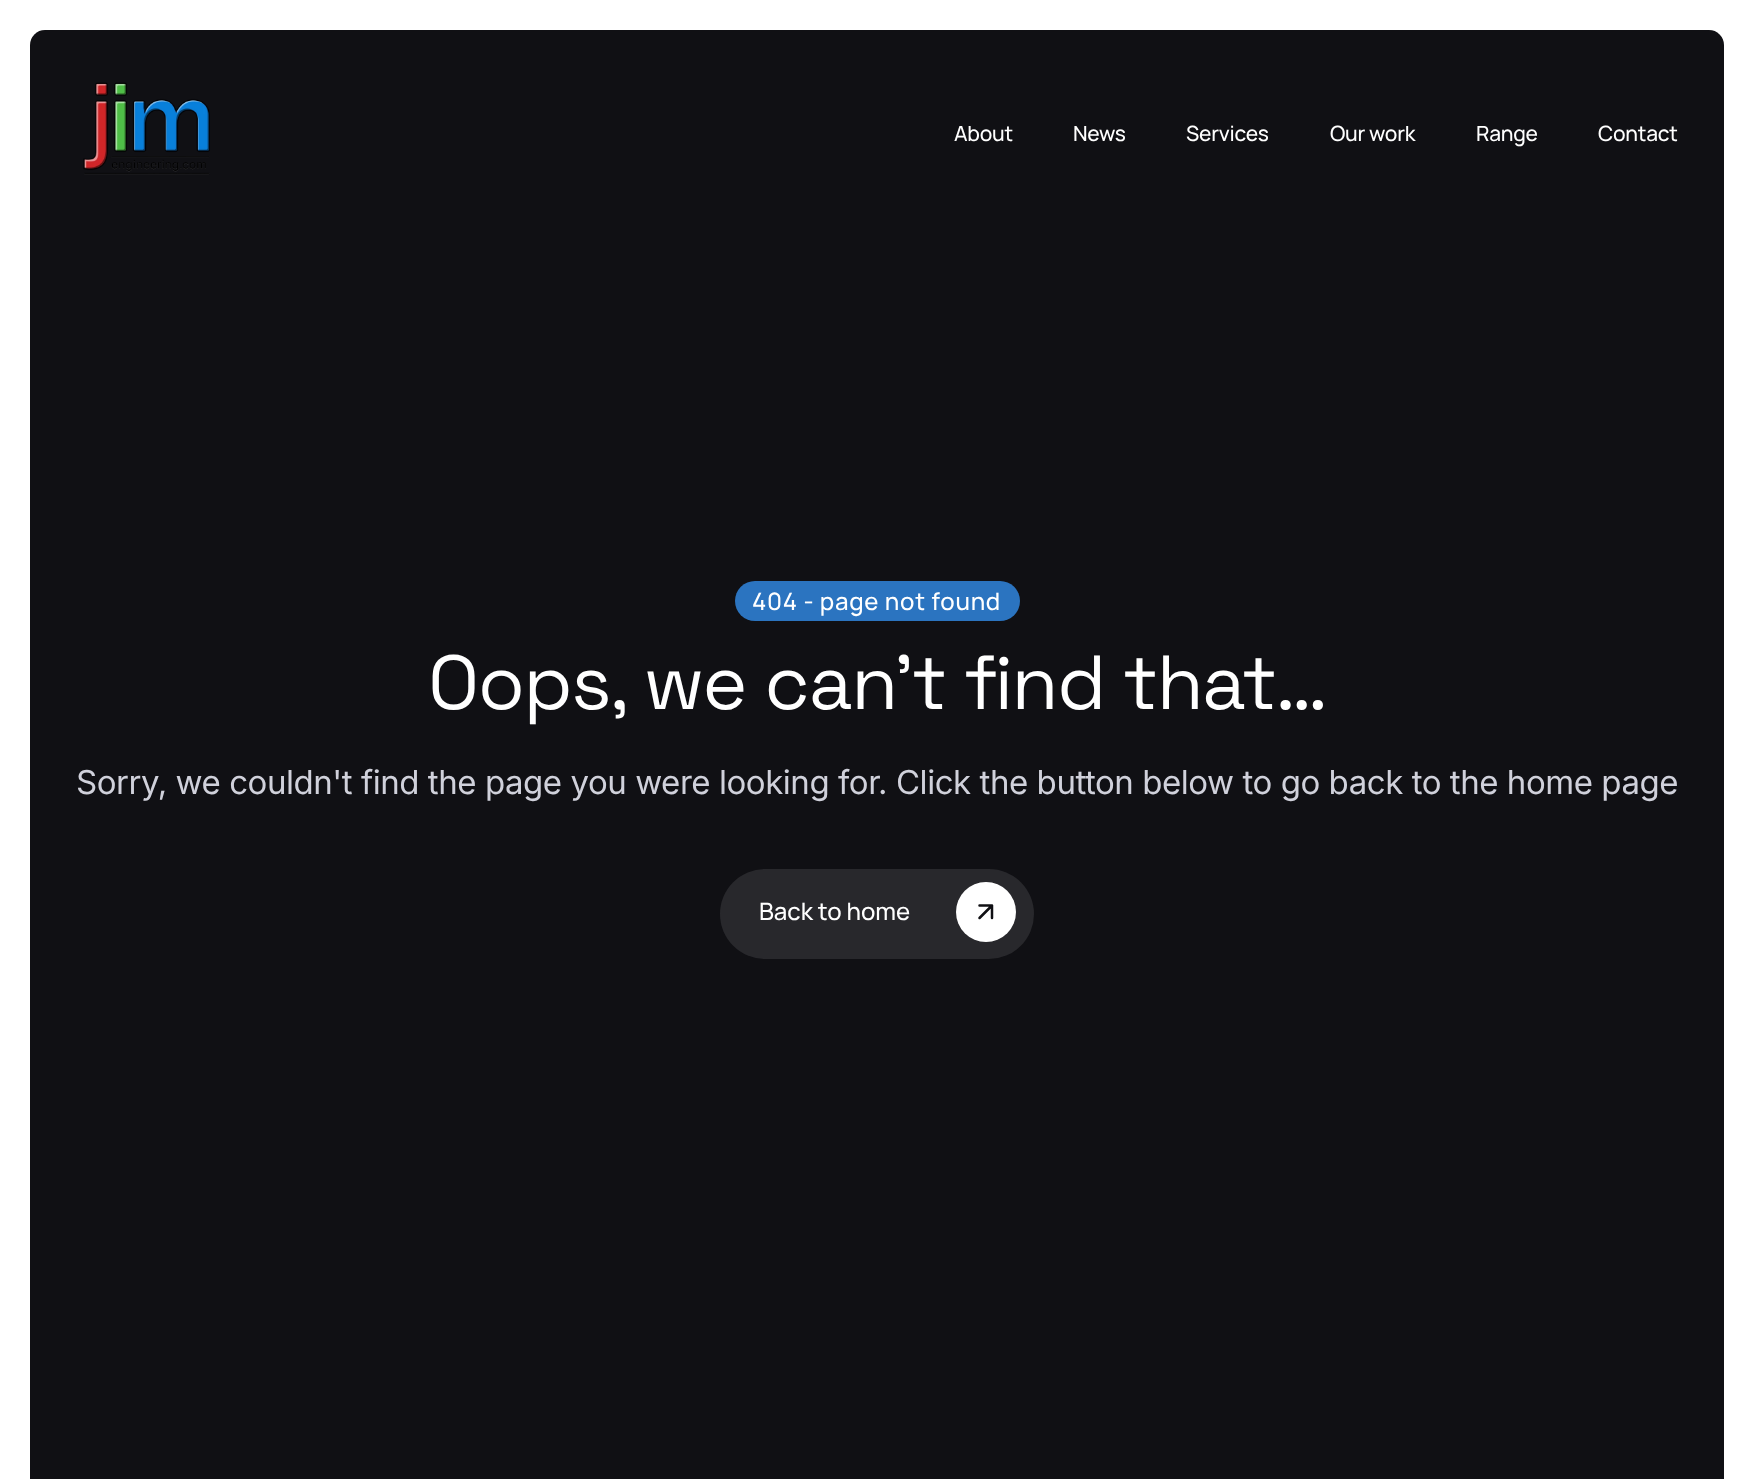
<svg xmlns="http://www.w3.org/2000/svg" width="1753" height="1479">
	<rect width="100%" height="100%" fill="#FFFFFF" />
	<rect x="30" y="30" width="1694" height="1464" rx="15" fill="#101014" />
	<image x="83" y="82" width="127" height="93" href="assets/img1.png" />
	<g font-family="Manrope" font-size="21" font-weight="500" letter-spacing="-0.25" fill="#FFFFFF">
		<text x="954" y="141">About</text>
		<text x="1073" y="141">News</text>
		<text x="1186" y="141">Services</text>
		<text x="1330" y="141">Our work</text>
		<text x="1476" y="141">Range</text>
		<text x="1598" y="141">Contact</text>
	</g>
	<rect x="735" y="581" width="285" height="40" rx="20" fill="#2B74C0" />
	<text x="752" y="610" font-family="Manrope" font-size="24" font-weight="500" letter-spacing="0.75" fill="#FFFFFF">404 - page not found</text>
	<text x="428" y="709" font-family="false" font-size="76.5" letter-spacing="-1.5" fill="#FFFFFF">Oops, we can't find that…</text>
	<text x="76" y="794" font-family="Inter" font-size="33" letter-spacing="-0.45" fill="#D0D1DB">Sorry, we couldn't find the page you were looking for. Click the button below to go back to the home page</text>
	<rect x="720" y="869" width="314" height="90" rx="45" fill="#28282C" />
	<text x="759" y="920" font-family="Manrope" font-size="24" font-weight="500" fill="#FFFFFF">Back to home</text>
	<circle cx="986" cy="912" r="30" fill="#FFFFFF" />
	<path d="M979.5 918L992 905.5M979.5 905.5H992V918" fill="none" stroke="#101014" stroke-width="2.5" stroke-linecap="round" stroke-linejoin="round" />
</svg>
